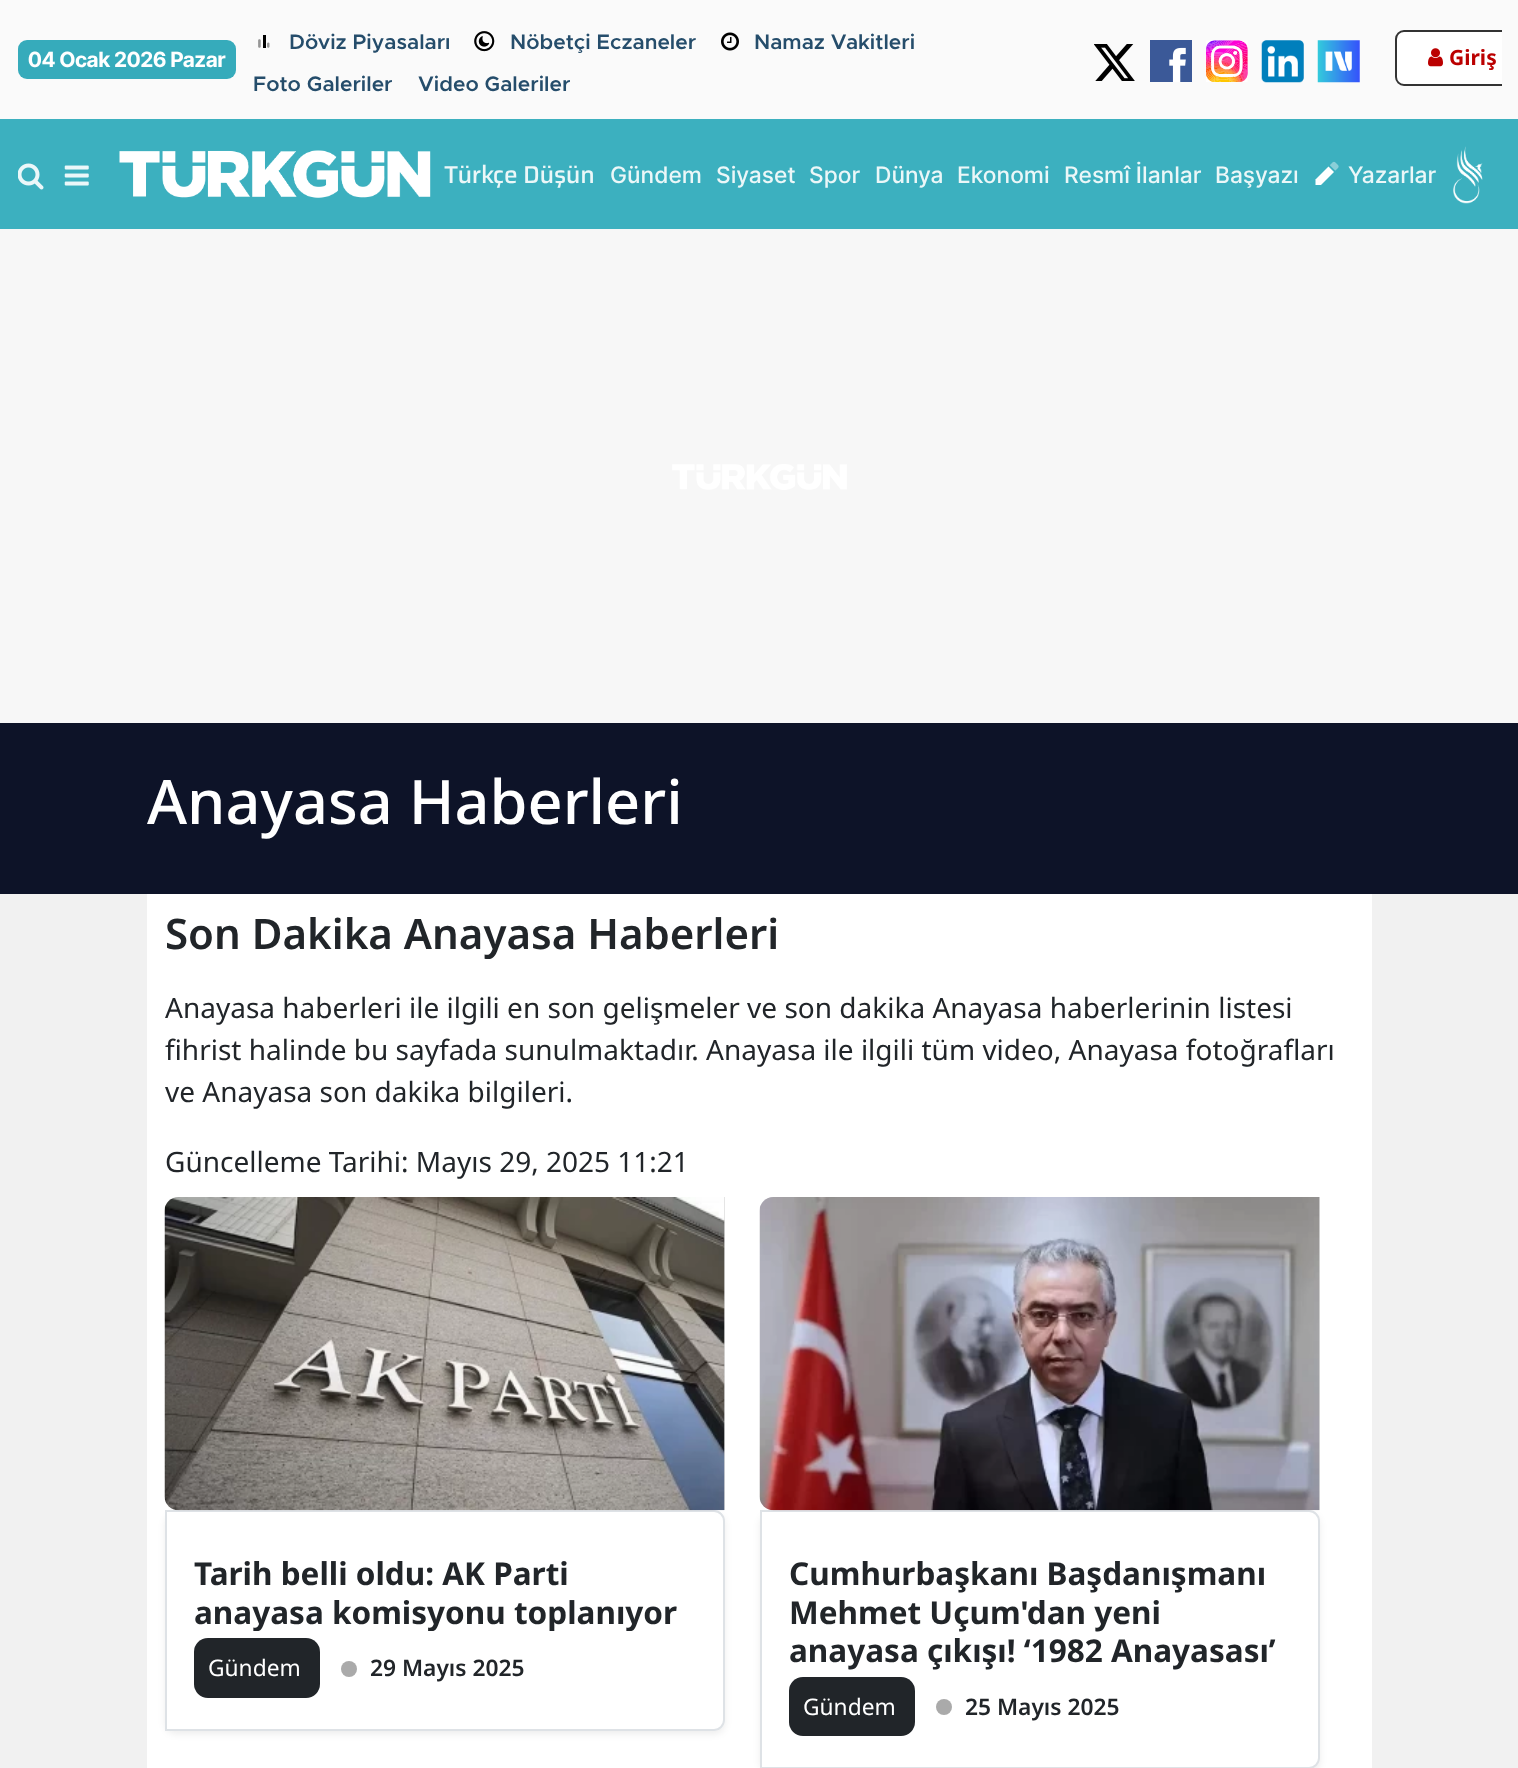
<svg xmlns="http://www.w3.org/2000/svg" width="1518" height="1768">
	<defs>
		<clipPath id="clip1"><rect x="1087" y="30" width="415" height="59" /></clipPath>
		<clipPath id="clip2"><path d="M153 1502H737V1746H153ZM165 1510H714C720 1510 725 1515 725 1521V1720C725 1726 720 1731 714 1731H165Z" clip-rule="evenodd" /></clipPath>
		<clipPath id="clip3"><rect x="194" y="1554" width="501" height="77" /></clipPath>
		<clipPath id="clip4"><path d="M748 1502H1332V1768H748ZM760 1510H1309C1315 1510 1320 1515 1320 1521V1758C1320 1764 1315 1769 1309 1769H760Z" clip-rule="evenodd" /></clipPath>
	</defs>
	<rect width="100%" height="100%" fill="#F1F1F1" />
	<rect x="0" y="0" width="1518" height="119" fill="#FAFAFA" />
	<rect x="18" y="40" width="218" height="39" rx="9" fill="#36ABBB" />
	<text x="28" y="67" font-family="Inter Tight" font-size="21" font-weight="700" fill="#FFFFFF">04 Ocak 2026 Pazar</text>
	<rect x="263" y="35" width="3" height="13" fill="#000000" />
	<image x="258" y="39" width="12" height="9" href="assets/img1.png" />
	<text x="289" y="49" font-family="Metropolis" font-size="21" font-weight="600" fill="#254D6B">Döviz Piyasaları</text>
	<image x="474" y="31" width="21" height="21" href="assets/img2.png" />
	<image x="474" y="31" width="21" height="21" href="assets/img3.png" />
	<text x="510" y="49" font-family="Metropolis" font-size="21" font-weight="600" fill="#254D6B">Nöbetçi Eczaneler</text>
	<image x="721" y="32" width="18" height="19" href="assets/img4.png" />
	<g font-family="Metropolis" font-size="21" font-weight="600" fill="#254D6B">
		<text x="754" y="49">Namaz Vakitleri</text>
		<text x="253" y="91">Foto Galeriler</text>
		<text x="418" y="91">Video Galeriler</text>
	</g>
	<image x="1094" y="44" width="41" height="37" href="assets/img5.png" />
	<image x="1150" y="40" width="42" height="42" href="assets/img6.png" />
	<image x="1206" y="40" width="42" height="42" href="assets/img7.png" />
	<image x="1261" y="40" width="43" height="43" href="assets/img8.png" />
	<image x="1317" y="40" width="43" height="43" href="assets/img9.png" />
	<path d="M1404 30H1502V86H1404C1399 86 1395 82 1395 77V39C1395 34 1399 30 1404 30Z" fill="#FFFFFF" />
	<g clip-path="url(#clip1)">
		<rect x="1396" y="31" width="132" height="54" rx="8" fill="none" stroke="#333333" stroke-width="2" />
	</g>
	<image x="1428" y="48" width="15" height="19" href="assets/img10.png" />
	<text x="1449" y="65" font-family="Noto Sans" font-size="21" font-weight="700" fill="#BB0000">Giriş</text>
	<rect x="0" y="119" width="1518" height="110" fill="#3CB0BF" />
	<image x="18" y="163" width="26" height="27" href="assets/img11.png" />
	<image x="64" y="165" width="25" height="21" href="assets/img12.png" />
	<image x="119" y="150" width="312" height="48" href="assets/img13.png" />
	<text x="444" y="183" font-family="Saira" font-size="24.5" font-weight="500" letter-spacing="-0.25" fill="#EBF7F8">Türkçe Düşün</text>
	<g font-family="Inter" font-size="22.75" font-weight="500" fill="#EBF7F8">
		<text x="610" y="183">Gündem</text>
		<text x="716" y="183">Siyaset</text>
		<text x="809" y="183">Spor</text>
		<text x="875" y="183">Dünya</text>
		<text x="957" y="183">Ekonomi</text>
		<text x="1064" y="183">Resmî İlanlar</text>
		<text x="1215" y="183">Başyazı</text>
	</g>
	<path d="M1328.5 166.5L1315.5 179.5V185H1321L1334 172Z" fill="#FFFFFF" />
	<image x="1330" y="161" width="9" height="10" href="assets/img14.png" />
	<text x="1348" y="183" font-family="Inter" font-size="22.75" font-weight="500" fill="#EBF7F8">Yazarlar</text>
	<image x="1453" y="146" width="30" height="58" href="assets/img15.png" />
	<rect x="0" y="229" width="1518" height="494" fill="#F7F7F7" />
	<image x="672" y="464" width="175" height="26" href="assets/img16.png" />
	<rect x="0" y="723" width="1518" height="171" fill="#0D1328" />
	<text x="147" y="824" font-family="Noto Sans" font-size="61.25" font-weight="500" fill="#FFFFFF">Anayasa Haberleri</text>
	<rect x="147" y="894" width="1225" height="874" fill="#FFFFFF" />
	<text x="165" y="949" font-family="Noto Sans" font-size="42" font-weight="600" fill="#212529">Son Dakika Anayasa Haberleri</text>
	<g font-family="Noto Sans" font-size="28" fill="#212529">
		<text x="165" y="1018">Anayasa haberleri ile ilgili en son gelişmeler ve son dakika Anayasa haberlerinin listesi</text>
		<text x="165" y="1060">fihrist halinde bu sayfada sunulmaktadır. Anayasa ile ilgili tüm video, Anayasa fotoğrafları</text>
		<text x="165" y="1102">ve Anayasa son dakika bilgileri.</text>
		<text x="165" y="1172">Güncelleme Tarihi: Mayıs 29, 2025 11:21</text>
	</g>
	<g clip-path="url(#clip2)">
		<rect x="165" y="1514" width="560" height="220" rx="11" fill="#000000" fill-opacity="0.07" filter="blur(3.5px)" />
	</g>
	<path d="M179 1197H725V1510H179C171.5 1510 165 1503.5 165 1496V1211C165 1203.5 171.5 1197 179 1197Z" fill="#DDDDDD" />
	<path d="M166 1511H714C719.5 1511 724 1515.5 724 1521V1720C724 1725.5 719.5 1730 714 1730H166Z" fill="none" stroke="#DEE2E6" stroke-width="2" />
	<image x="164" y="1197" width="561" height="314" href="assets/img17.png" />
	<text x="194" y="1585" font-family="Noto Sans" font-size="31.5" font-weight="700" fill="#212529">Tarih belli oldu: AK Parti</text>
	<g clip-path="url(#clip3)">
		<text x="194" y="1624" font-family="Noto Sans" font-size="31.5" font-weight="700" fill="#212529">anayasa komisyonu toplanıyor</text>
	</g>
	<rect x="194" y="1638" width="126" height="60" rx="14" fill="#212529" />
	<text x="208" y="1676" font-family="Noto Sans" font-size="22.75" fill="#FFFFFF">Gündem</text>
	<circle cx="349" cy="1669" r="8" fill="#AAAAAA" />
	<text x="370" y="1676" font-family="Noto Sans" font-size="22.75" font-weight="600" fill="#212529">29 Mayıs 2025</text>
	<g clip-path="url(#clip4)">
		<rect x="760" y="1514" width="560" height="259" rx="11" fill="#000000" fill-opacity="0.07" filter="blur(3.5px)" />
	</g>
	<path d="M774 1197H1320V1510H774C766.5 1510 760 1503.5 760 1496V1211C760 1203.5 766.5 1197 774 1197Z" fill="#DDDDDD" />
	<path d="M761 1511H1309C1314.5 1511 1319 1515.5 1319 1521V1758C1319 1763.5 1314.5 1768 1309 1768H761Z" fill="none" stroke="#DEE2E6" stroke-width="2" />
	<image x="759" y="1197" width="561" height="314" href="assets/img18.png" />
	<g font-family="Noto Sans" font-size="31.5" font-weight="700" fill="#212529">
		<text x="789" y="1585">Cumhurbaşkanı Başdanışmanı</text>
		<text x="789" y="1624">Mehmet Uçum'dan yeni</text>
		<text x="789" y="1662">anayasa çıkışı! ‘1982 Anayasası’</text>
	</g>
	<rect x="789" y="1677" width="126" height="59" rx="14" fill="#212529" />
	<text x="803" y="1715" font-family="Noto Sans" font-size="22.75" fill="#FFFFFF">Gündem</text>
	<circle cx="944" cy="1707" r="8" fill="#AAAAAA" />
	<text x="965" y="1715" font-family="Noto Sans" font-size="22.75" font-weight="600" fill="#212529">25 Mayıs 2025</text>
</svg>
